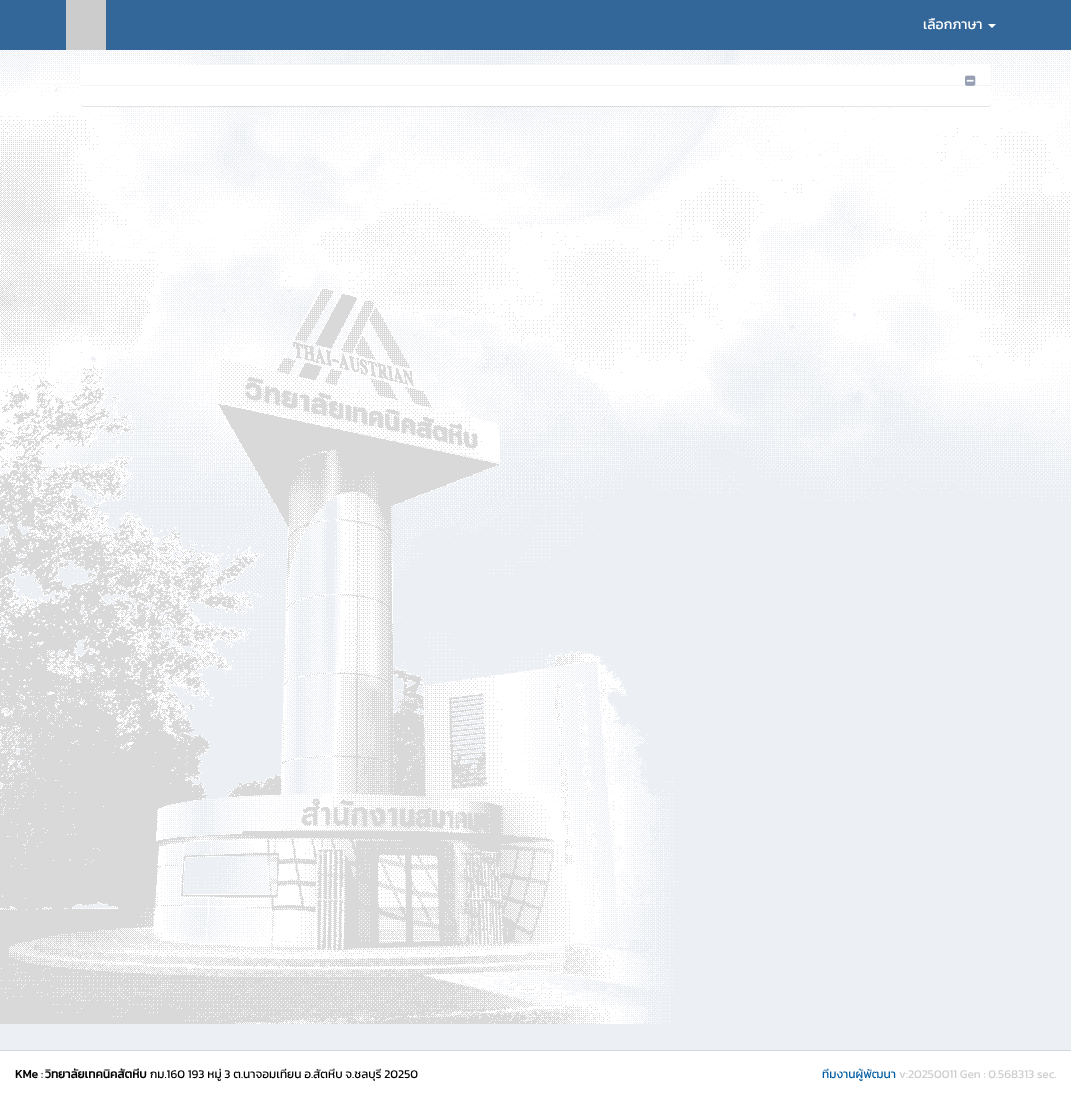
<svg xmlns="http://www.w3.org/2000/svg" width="1071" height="1098">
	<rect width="100%" height="100%" fill="#ECF0F5" />
	<rect x="0" y="0" width="1071" height="50" fill="#336699" />
	<rect x="66" y="0" width="40" height="50" fill="#CCCCCC" />
	<text x="923" y="29" font-family="Kanit" font-size="14" fill="#FFFFFF">เลือกภาษา</text>
	<path d="M988 24H996L992 28Z" fill="#FFFFFF" />
	<image x="0" y="50" width="1071" height="974" href="assets/img1.png" />
	<rect x="81" y="66" width="910" height="41" rx="3" fill="#000000" fill-opacity="0.1" filter="blur(0.5px)" />
	<rect x="81" y="65" width="910" height="41" rx="3" fill="#FFFFFF" />
	<rect x="81" y="85" width="910" height="1" fill="#F4F4F4" />
	<image x="965" y="75" width="11" height="11" href="assets/img2.png" />
	<rect x="0" y="1051" width="1071" height="47" fill="#FFFFFF" />
	<rect x="0" y="1050" width="1071" height="1" fill="#D2D6DE" />
	<text x="15" y="1078" font-family="Kanit" font-size="11.9" font-weight="700" fill="#000000">KMe</text>
	<text x="41" y="1078" font-family="Kanit" font-size="11.9" fill="#000000">:</text>
	<text x="45" y="1078" font-family="Kanit" font-size="11.9" font-weight="700" fill="#000000">วิทยาลัยเทคนิคสัตหีบ</text>
	<text x="150" y="1078" font-family="Kanit" font-size="11.9" fill="#000000">กม.160 193 หมู่ 3 ต.นาจอมเทียน อ.สัตหีบ จ.ชลบุรี 20250</text>
	<text x="822" y="1078" font-family="Kanit" font-size="11.9" fill="#005CA2">ทีมงานผู้พัฒนา</text>
	<text x="899" y="1078" font-family="Kanit" font-size="11.9" fill="#CECECE">v:20250011 Gen : 0.568313 sec.</text>
</svg>
